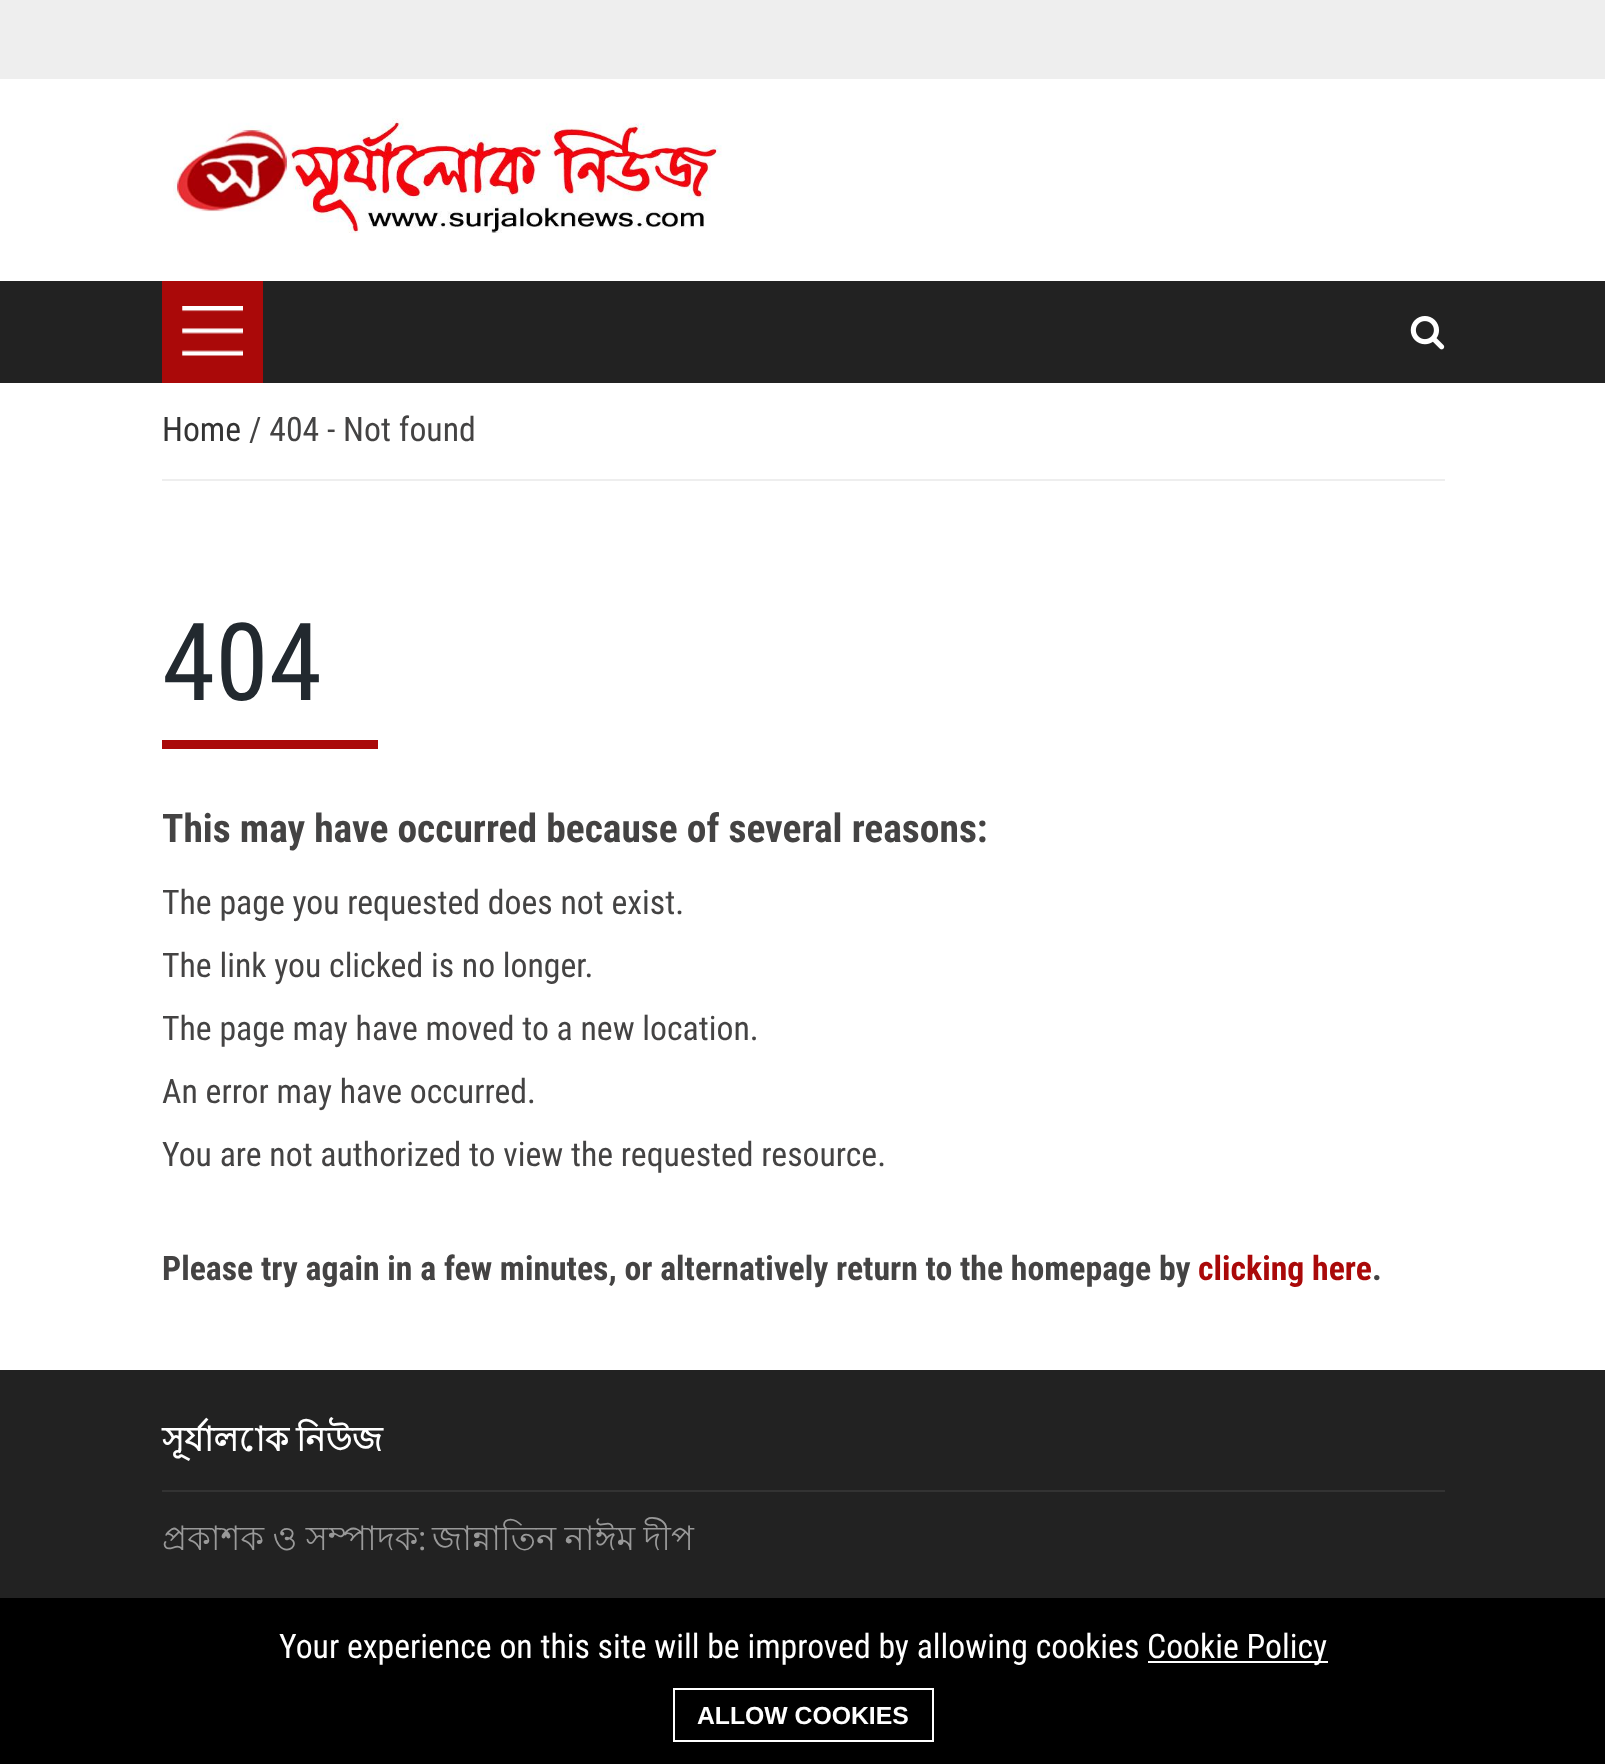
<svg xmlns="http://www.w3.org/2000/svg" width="1605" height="1764">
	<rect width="100%" height="100%" fill="#FFFFFF" />
	<rect x="0" y="0" width="1605" height="79" fill="#EEEEEE" />
	<image x="173" y="118" width="549" height="116" href="assets/img1.png" />
	<rect x="0" y="281" width="1605" height="102" fill="#222222" />
	<rect x="162" y="281" width="101" height="102" fill="#AA0909" />
	<image x="182" y="306" width="61" height="50" href="assets/img2.png" />
	<image x="1410" y="316" width="35" height="34" href="assets/img3.png" />
	<rect x="162" y="479" width="1283" height="2" fill="#EEEEEE" />
	<text x="162" y="441" font-family="Roboto Condensed" font-size="33.75" fill="#333333">Home</text>
	<text x="249" y="441" font-family="Roboto Condensed" font-size="33.75" fill="#444343">/ 404 - Not found</text>
	<text x="162" y="700" font-family="Roboto Condensed" font-size="108" fill="#22292F">404</text>
	<rect x="162" y="740" width="216" height="9" fill="#AA0909" />
	<text x="162" y="842" font-family="Roboto Condensed" font-size="39.5" font-weight="700" fill="#444343">This may have occurred because of several reasons:</text>
	<g font-family="Roboto Condensed" font-size="33.75" fill="#444343">
		<text x="162" y="914">The page you requested does not exist.</text>
		<text x="162" y="977">The link you clicked is no longer.</text>
		<text x="162" y="1040">The page may have moved to a new location.</text>
		<text x="162" y="1103">An error may have occurred.</text>
		<text x="162" y="1166">You are not authorized to view the requested resource.</text>
	</g>
	<text x="162" y="1280" font-family="Roboto Condensed" font-size="33.75" font-weight="700" fill="#444343">Please try again in a few minutes, or alternatively return to the homepage by</text>
	<text x="1198" y="1280" font-family="Roboto Condensed" font-size="33.75" font-weight="700" fill="#AA0909">clicking here</text>
	<text x="1372" y="1280" font-family="Roboto Condensed" font-size="33.75" font-weight="700" fill="#444343">.</text>
	<rect x="0" y="1370" width="1605" height="228" fill="#222222" />
	<rect x="162" y="1490" width="1283" height="2" fill="#333333" />
	<text x="162" y="1451" word-spacing="-2" font-family="Lohit Bengali" font-size="33.75" font-weight="700" fill="#FFFFFF">সূর্যালোক নিউজ</text>
	<text x="162" y="1550" word-spacing="-1" font-family="Lohit Bengali" font-size="33.75" fill="#999999">প্রকাশক ও সম্পাদক</text>
	<text x="418" y="1550" font-family="Roboto Condensed" font-size="33.75" fill="#999999">:</text>
	<text x="432" y="1550" word-spacing="-1" font-family="Lohit Bengali" font-size="33.75" fill="#999999">জান্নাতিন নাঈম দীপ</text>
	<rect x="0" y="1598" width="1605" height="166" fill="#000000" />
	<text x="279" y="1658" font-family="Roboto Condensed" font-size="33.75" fill="#FFFFFF">Your experience on this site will be improved by allowing cookies</text>
	<rect x="1148" y="1661" width="180" height="2" fill="#FFFFFF" />
	<text x="1147" y="1658" font-family="Roboto Condensed" font-size="33.75" fill="#FFFFFF">Cookie Policy</text>
	<rect x="674" y="1689" width="259" height="52" fill="none" stroke="#FFFFFF" stroke-width="2" />
	<text x="697" y="1724" font-family="Liberation Sans" font-size="24.75" font-weight="700" fill="#FFFFFF">ALLOW COOKIES</text>
</svg>
